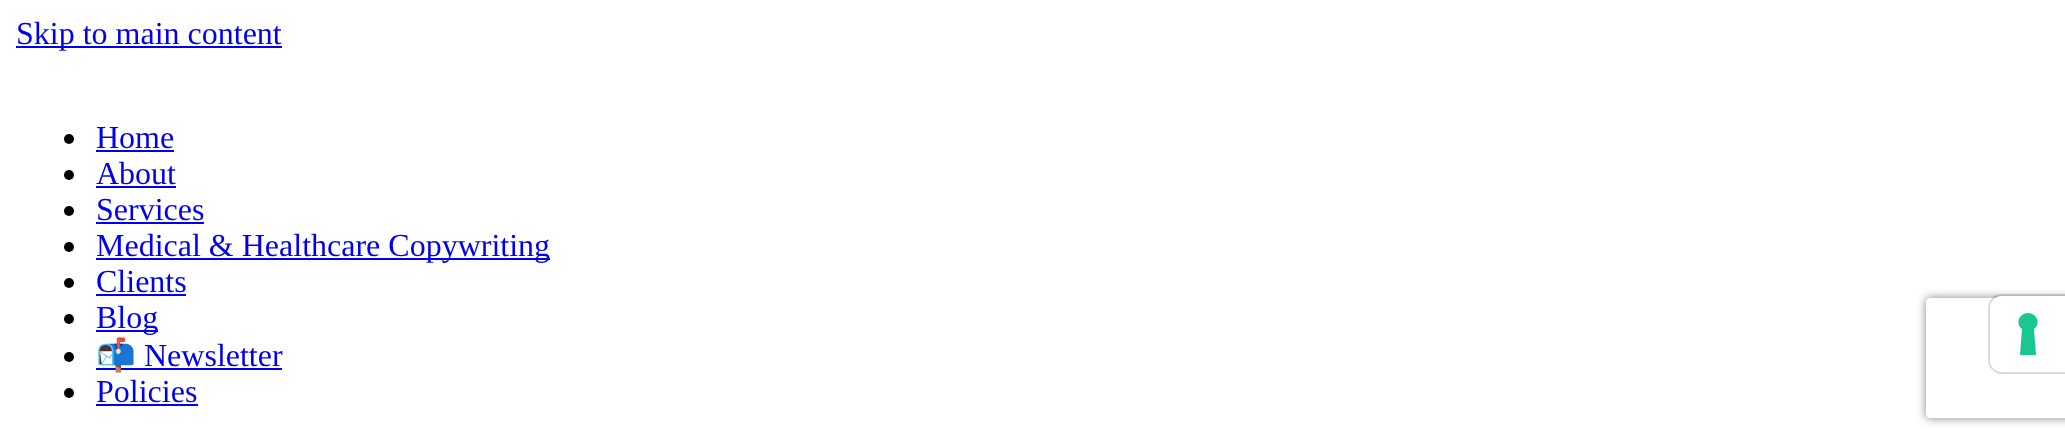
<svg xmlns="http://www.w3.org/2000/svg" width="2065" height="446">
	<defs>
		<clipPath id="clip1"><path d="M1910 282H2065V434H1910ZM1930 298H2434C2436 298 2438 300 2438 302V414C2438 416 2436 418 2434 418H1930C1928 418 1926 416 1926 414V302C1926 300 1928 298 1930 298Z" clip-rule="evenodd" /></clipPath>
	</defs>
	<rect width="100%" height="100%" fill="#FFFFFF" />
	<rect x="16" y="46" width="266" height="2" fill="#0000EE" />
	<text x="16" y="44" font-family="Liberation Serif" font-size="32" fill="#0000EE">Skip to main content</text>
	<circle cx="69" cy="139" r="5" fill="#000000" />
	<text x="96" y="148" font-family="Liberation Serif" font-size="32" fill="#0000EE">Home</text>
	<rect x="96" y="150" width="78" height="2" fill="#0000EE" />
	<circle cx="69" cy="175" r="5" fill="#000000" />
	<text x="96" y="184" font-family="Liberation Serif" font-size="32" fill="#0000EE">About</text>
	<rect x="96" y="186" width="80" height="2" fill="#0000EE" />
	<circle cx="69" cy="211" r="5" fill="#000000" />
	<text x="96" y="220" font-family="Liberation Serif" font-size="32" fill="#0000EE">Services</text>
	<rect x="96" y="222" width="108" height="2" fill="#0000EE" />
	<circle cx="69" cy="247" r="5" fill="#000000" />
	<rect x="96" y="258" width="454" height="2" fill="#0000EE" />
	<text x="96" y="256" font-family="Liberation Serif" font-size="32" fill="#0000EE">Medical &amp; Healthcare Copywriting</text>
	<circle cx="69" cy="283" r="5" fill="#000000" />
	<text x="96" y="292" font-family="Liberation Serif" font-size="32" fill="#0000EE">Clients</text>
	<rect x="96" y="294" width="90" height="2" fill="#0000EE" />
	<circle cx="69" cy="319" r="5" fill="#000000" />
	<rect x="96" y="330" width="62" height="2" fill="#0000EE" />
	<text x="96" y="328" font-family="Liberation Serif" font-size="32" fill="#0000EE">Blog</text>
	<circle cx="69" cy="357" r="5" fill="#000000" />
	<rect x="96" y="368" width="186" height="2" fill="#0000EE" />
	<text x="96" y="366" font-family="Noto Color Emoji" font-size="32" fill="#0000EE">📬</text>
	<text x="144" y="366" font-family="Liberation Serif" font-size="32" fill="#0000EE">Newsletter</text>
	<circle cx="69" cy="393" r="5" fill="#000000" />
	<text x="96" y="402" font-family="Liberation Serif" font-size="32" fill="#0000EE">Policies</text>
	<rect x="96" y="404" width="102" height="2" fill="#0000EE" />
	<g clip-path="url(#clip1)">
		<rect x="1926" y="298" width="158" height="120" rx="4" fill="#808080" filter="blur(5px)" />
	</g>
	<path d="M2002 295H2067V373H2002C1995 373 1989 367 1989 360V308C1989 301 1995 295 2002 295Z" fill="none" stroke="#000000" stroke-opacity="0.15" stroke-width="2" />
	<path d="M2002 296H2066V372H2002C1995.5 372 1990 366.5 1990 360V308C1990 301.5 1995.5 296 2002 296Z" fill="#FFFFFF" />
	<path d="M2028 313C2037 313 2041 324 2034 329L2036 355H2020L2022 329C2015 324 2019 313 2028 313Z" fill="#1CC691" fill-rule="evenodd" />
</svg>
